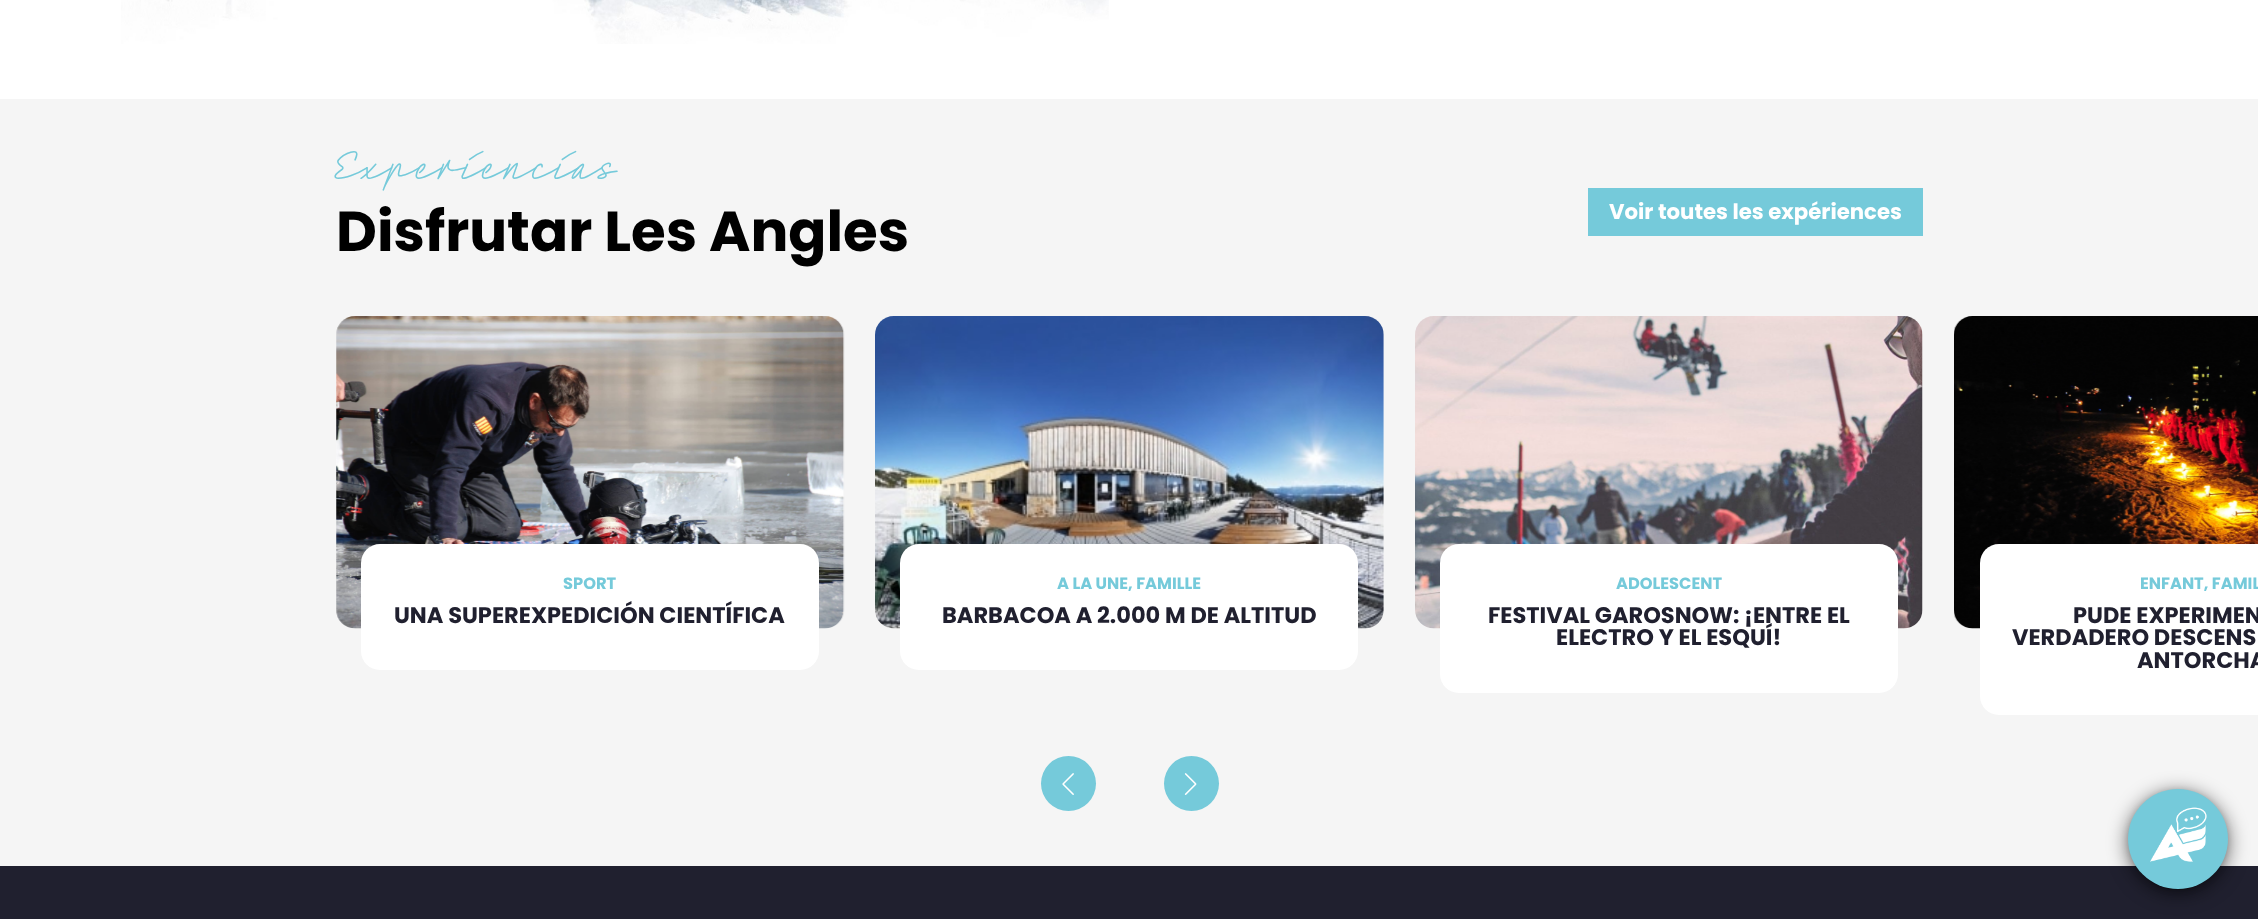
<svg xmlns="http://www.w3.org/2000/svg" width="2258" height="919">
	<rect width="100%" height="100%" fill="#FFFFFF" />
	<image x="121" y="0" width="988" height="44" href="assets/img1.png" />
	<rect x="0" y="99" width="2258" height="767" fill="#F5F5F5" />
	<text x="336" y="179" font-family="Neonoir" font-size="43.75" font-weight="100" fill="#75CADA">Experiencias</text>
	<text x="336" y="251" font-family="Poppins" font-size="56.25" font-weight="700" fill="#000000">Disfrutar Les Angles</text>
	<rect x="1588" y="188" width="335" height="48" fill="#75CADA" />
	<text x="1609" y="219" font-family="Poppins" font-size="21.25" font-weight="700" fill="#FFFFFF">Voir toutes les expériences</text>
	<image x="336" y="316" width="509" height="313" href="assets/img2.png" />
	<rect x="361" y="544" width="458" height="126" rx="19" fill="#FFFFFF" />
	<text x="563" y="589" font-family="Poppins" font-size="16.25" font-weight="700" fill="#75CADA">SPORT</text>
	<text x="394" y="623" font-family="Poppins" font-size="22.5" font-weight="700" fill="#20202F">UNA SUPEREXPEDICIÓN CIENTÍFICA</text>
	<image x="875" y="316" width="509" height="313" href="assets/img3.png" />
	<rect x="900" y="544" width="458" height="126" rx="19" fill="#FFFFFF" />
	<text x="1057" y="589" font-family="Poppins" font-size="16.25" font-weight="700" fill="#75CADA">A LA UNE, FAMILLE</text>
	<text x="942" y="623" font-family="Poppins" font-size="22.5" font-weight="700" fill="#20202F">BARBACOA A 2.000 M DE ALTITUD</text>
	<image x="1415" y="316" width="508" height="313" href="assets/img4.png" />
	<rect x="1440" y="544" width="458" height="149" rx="19" fill="#FFFFFF" />
	<text x="1616" y="589" font-family="Poppins" font-size="16.25" font-weight="700" fill="#75CADA">ADOLESCENT</text>
	<g font-family="Poppins" font-size="22.5" font-weight="700" fill="#20202F">
		<text x="1488" y="623">FESTIVAL GAROSNOW: ¡ENTRE EL</text>
		<text x="1556" y="645">ELECTRO Y EL ESQUÍ!</text>
	</g>
	<image x="1954" y="316" width="304" height="313" href="assets/img5.png" />
	<rect x="1980" y="544" width="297" height="171" rx="19" fill="#FFFFFF" />
	<text x="2140" y="589" font-family="Poppins" font-size="16.25" font-weight="700" fill="#75CADA">ENFANT, FAMIL</text>
	<g font-family="Poppins" font-size="22.5" font-weight="700" fill="#20202F">
		<text x="2073" y="623">PUDE EXPERIMEN</text>
		<text x="2012" y="645">VERDADERO DESCENS</text>
		<text x="2137" y="668">ANTORCHA</text>
	</g>
	<circle cx="1068.5" cy="783.5" r="27.5" fill="#75CADA" />
	<image x="1062" y="773" width="12" height="22" href="assets/img6.png" />
	<circle cx="1191.5" cy="783.5" r="27.5" fill="#75CADA" />
	<image x="1184" y="773" width="13" height="22" href="assets/img7.png" />
	<rect x="0" y="866" width="2258" height="53" fill="#20202F" />
	<rect x="2128" y="790" width="100" height="100" rx="50" fill="#000000" fill-opacity="0.12" filter="blur(3px)" />
	<rect x="2130" y="795" width="95" height="95" rx="47.5" fill="#000000" fill-opacity="0.2" filter="blur(0.5px)" />
	<rect x="2128" y="793" width="100" height="100" rx="50" fill="#000000" fill-opacity="0.6" filter="blur(10px)" />
	<circle cx="2178" cy="839" r="50" fill="#75CADA" />
	<image x="2150" y="807" width="57" height="55" href="assets/img8.png" />
</svg>
